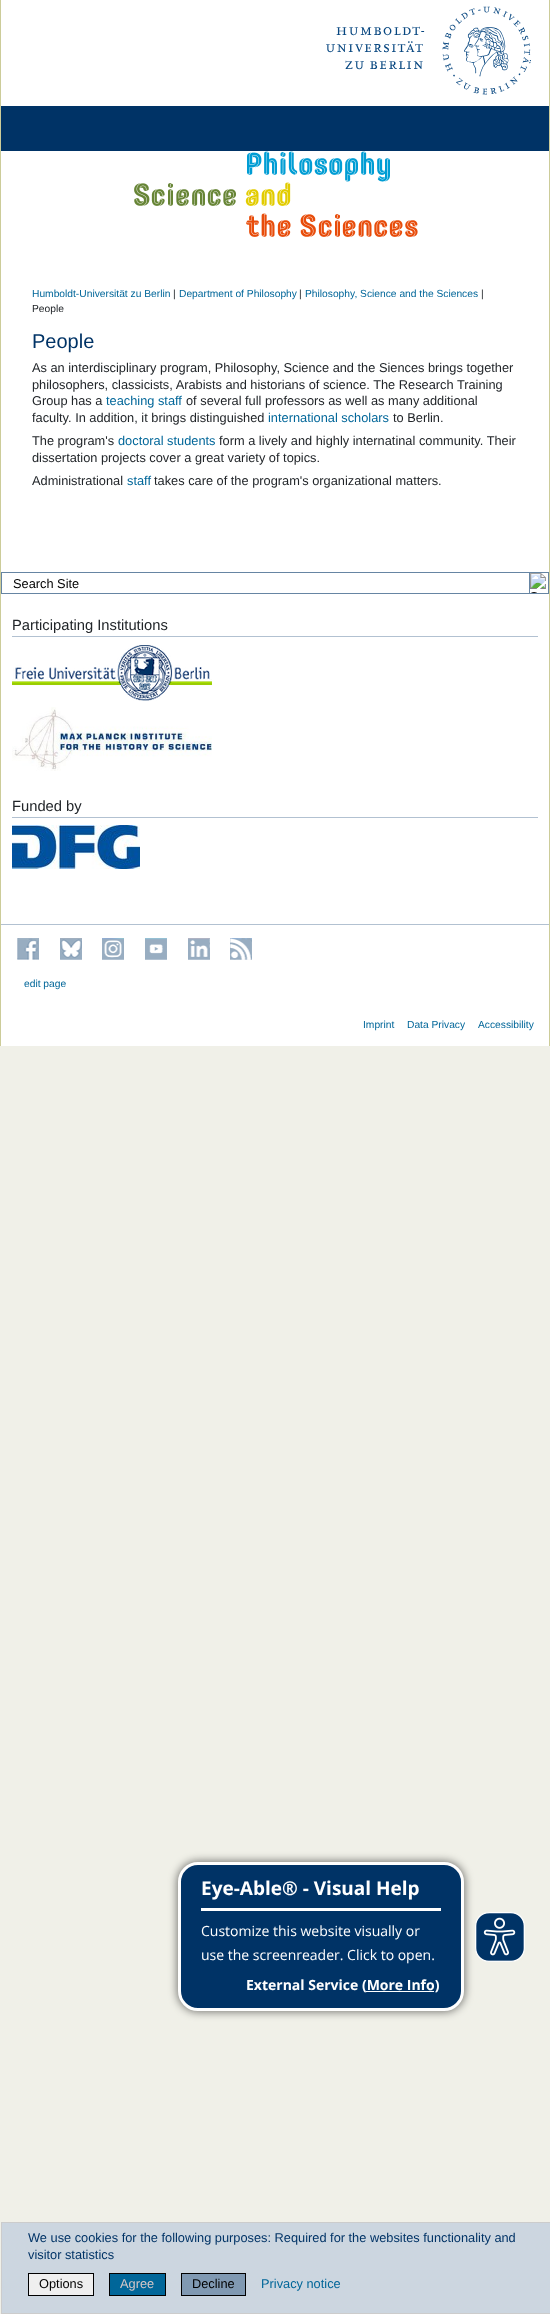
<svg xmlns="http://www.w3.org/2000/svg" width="550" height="2314">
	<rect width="100%" height="100%" fill="#F0F0E8" />
	<rect x="1" y="0" width="548" height="1046" fill="#FFFFFF" />
	<image x="326" y="6" width="205" height="89" href="assets/img1.png" />
	<rect x="1" y="106" width="548" height="45" fill="#003366" />
	<image x="95" y="151" width="360" height="110" href="assets/img2.png" />
	<rect x="549" y="0" width="1" height="1046" fill="#CCCC99" />
	<rect x="0" y="0" width="1" height="1046" fill="#CCCC99" />
	<text x="32" y="297" font-family="Liberation Sans" font-size="10.25" fill="#006699">Humboldt-Universität zu Berlin</text>
	<text x="173" y="297" font-family="Liberation Sans" font-size="10.25" fill="#212529">|</text>
	<text x="179" y="297" font-family="Liberation Sans" font-size="10.25" fill="#006699">Department of Philosophy</text>
	<text x="299" y="297" font-family="Liberation Sans" font-size="10.25" fill="#212529">|</text>
	<text x="305" y="297" font-family="Liberation Sans" font-size="10.25" fill="#006699">Philosophy, Science and the Sciences</text>
	<g font-family="Liberation Sans" font-size="10.25" fill="#212529">
		<text x="481" y="297">|</text>
		<text x="32" y="312">People</text>
	</g>
	<text x="32" y="348" font-family="Liberation Sans" font-size="20" fill="#003366">People</text>
	<g font-family="Liberation Sans" font-size="12.8" fill="#212529">
		<text x="32" y="372">As an interdisciplinary program, Philosophy, Science and the Siences brings together</text>
		<text x="32" y="389">philosophers, classicists, Arabists and historians of science. The Research Training</text>
		<text x="32" y="405">Group has a</text>
	</g>
	<text x="106" y="405" font-family="Liberation Sans" font-size="12.8" fill="#006699">teaching staff</text>
	<g font-family="Liberation Sans" font-size="12.8" fill="#212529">
		<text x="186" y="405">of several full professors as well as many additional</text>
		<text x="32" y="422">faculty. In addition, it brings distinguished</text>
	</g>
	<text x="268" y="422" font-family="Liberation Sans" font-size="12.8" fill="#006699">international scholars</text>
	<g font-family="Liberation Sans" font-size="12.8" fill="#212529">
		<text x="393" y="422">to Berlin.</text>
		<text x="32" y="445">The program's</text>
	</g>
	<text x="118" y="445" font-family="Liberation Sans" font-size="12.8" fill="#006699">doctoral students</text>
	<g font-family="Liberation Sans" font-size="12.8" fill="#212529">
		<text x="219" y="445">form a lively and highly internatinal community. Their</text>
		<text x="32" y="462">dissertation projects cover a great variety of topics.</text>
		<text x="32" y="485">Administrational</text>
	</g>
	<text x="127" y="485" font-family="Liberation Sans" font-size="12.8" fill="#006699">staff</text>
	<text x="154" y="485" font-family="Liberation Sans" font-size="12.8" fill="#212529">takes care of the program's organizational matters.</text>
	<rect x="1.5" y="572.5" width="547" height="21" fill="none" stroke="#6685A3" />
	<text x="13" y="588" font-family="Liberation Sans" font-size="12.8" fill="#000000">Search Site</text>
	<rect x="529.5" y="572.5" width="19" height="21" fill="none" stroke="#6685A3" />
	<image x="530" y="573" width="16" height="20" href="assets/img3.png" />
	<rect x="12" y="636" width="526" height="1" fill="#B2C1D1" />
	<text x="12" y="630" font-family="Liberation Sans" font-size="14.75" fill="#212529">Participating Institutions</text>
	<image x="12" y="645" width="200" height="56" href="assets/img4.png" />
	<image x="12" y="707" width="200" height="64" href="assets/img5.png" />
	<rect x="12" y="817" width="526" height="1" fill="#B2C1D1" />
	<text x="12" y="811" font-family="Liberation Sans" font-size="14.75" fill="#212529">Funded by</text>
	<image x="12" y="825" width="128" height="44" href="assets/img6.png" />
	<rect x="1" y="924" width="548" height="1" fill="#B2C1D1" />
	<image x="17" y="938" width="22" height="22" href="assets/img7.png" />
	<image x="60" y="938" width="22" height="22" href="assets/img8.png" />
	<image x="102" y="938" width="22" height="22" href="assets/img9.png" />
	<image x="145" y="938" width="22" height="22" href="assets/img10.png" />
	<image x="188" y="938" width="22" height="22" href="assets/img11.png" />
	<image x="230" y="938" width="22" height="22" href="assets/img12.png" />
	<g font-family="Liberation Sans" font-size="10.25" fill="#006699">
		<text x="24" y="987">edit page</text>
		<text x="363" y="1028">Imprint</text>
		<text x="407" y="1028">Data Privacy</text>
		<text x="478" y="1028">Accessibility</text>
	</g>
	<rect x="1.5" y="2222.5" width="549" height="91" fill="#CCD6E0" stroke="#CCCCCC" />
	<g font-family="Liberation Sans" font-size="12.8" fill="#003366">
		<text x="28" y="2242">We use cookies for the following purposes: Required for the websites functionality and</text>
		<text x="28" y="2259">visitor statistics</text>
	</g>
	<rect x="28.5" y="2273.5" width="65" height="22" fill="#EFEFEF" stroke="#000000" />
	<text x="39" y="2288" font-family="Liberation Sans" font-size="12.8" fill="#000000">Options</text>
	<rect x="109.5" y="2273.5" width="56" height="22" fill="#006699" stroke="#000000" />
	<text x="120" y="2288" font-family="Liberation Sans" font-size="12.8" fill="#D5C7C7">Agree</text>
	<rect x="181.5" y="2273.5" width="64" height="22" fill="#8099B2" stroke="#000000" />
	<text x="192" y="2288" font-family="Liberation Sans" font-size="12.8" fill="#000000">Decline</text>
	<text x="261" y="2288" font-family="Liberation Sans" font-size="12.8" fill="#006699">Privacy notice</text>
	<rect x="177" y="1861" width="288" height="151" rx="21" fill="#000000" fill-opacity="0.5" filter="blur(4px)" />
	<rect x="179.5" y="1863.5" width="283" height="146" rx="18.5" fill="#003366" stroke="#FFFFFF" stroke-width="3" />
	<rect x="201" y="1908" width="240" height="3" fill="#FFFFFF" />
	<text x="201" y="1895" font-family="Open Sans" font-size="19" font-weight="700" fill="#FFFFFF">Eye-Able® - Visual Help</text>
	<g font-family="Open Sans" font-size="14" fill="#FFFFFF">
		<text x="201" y="1936">Customize this website visually or</text>
		<text x="201" y="1960">use the screenreader. Click to open.</text>
	</g>
	<text x="246" y="1990" font-family="Open Sans" font-size="14" font-weight="700" fill="#FFFFFF">External Service (More Info)</text>
	<rect x="366" y="1991" width="68" height="1" fill="#FFFFFF" />
	<image x="475" y="1912" width="50" height="50" href="assets/img13.png" />
</svg>
